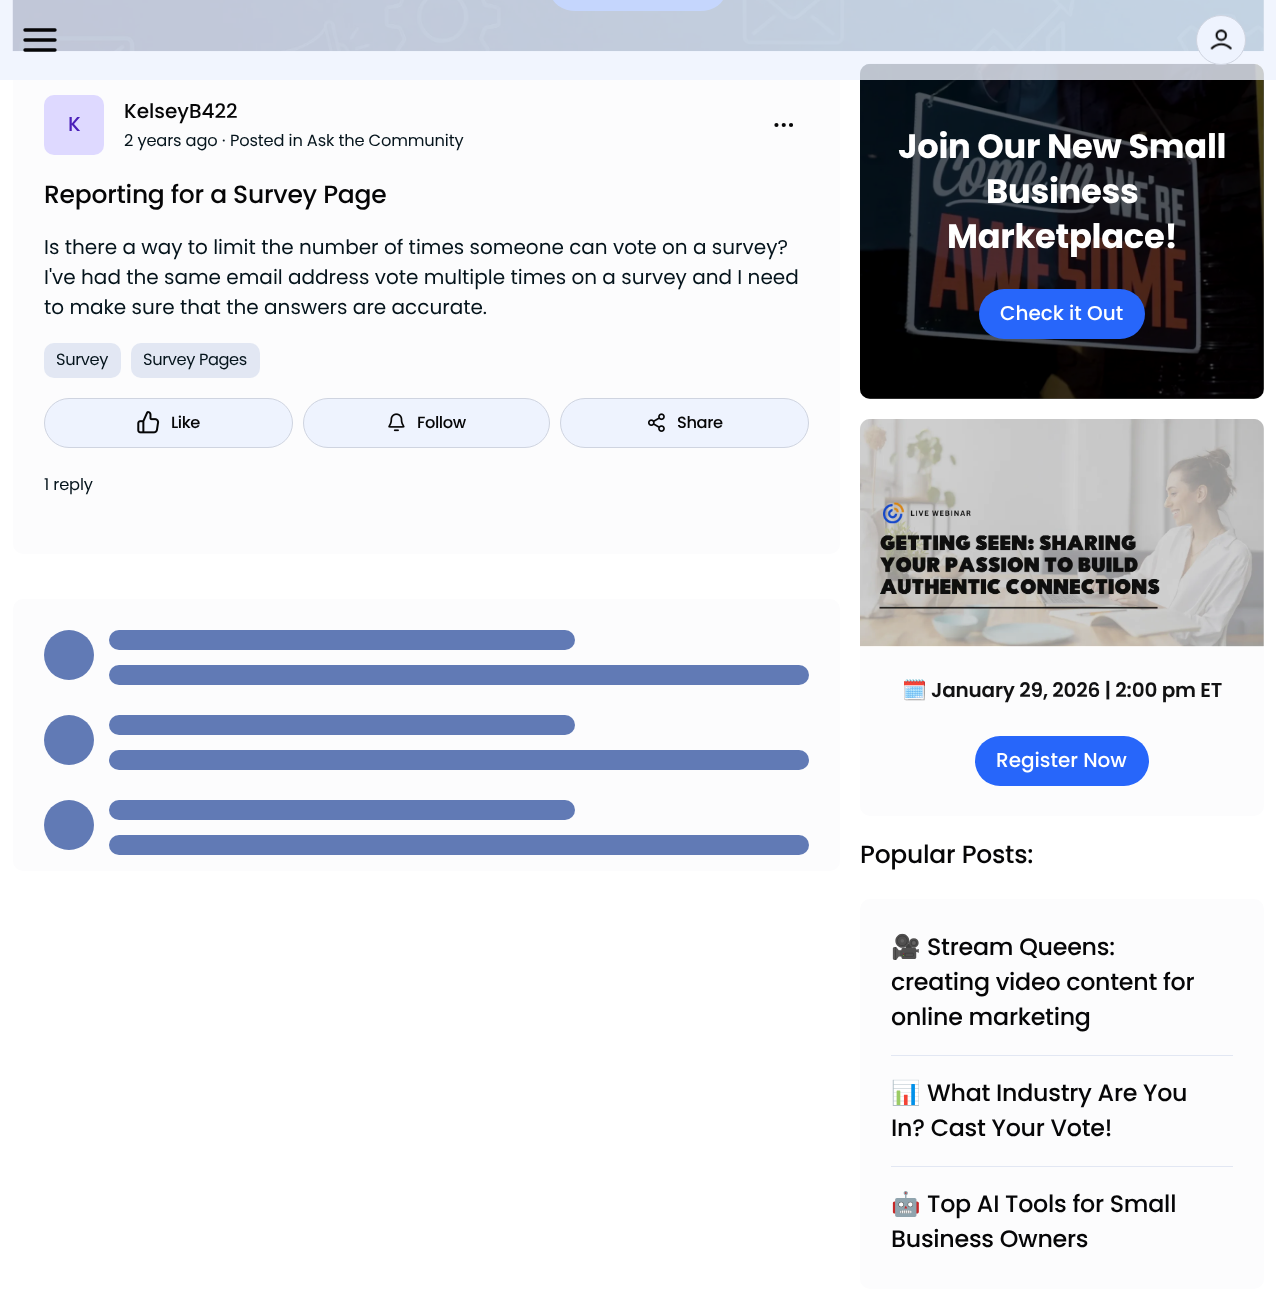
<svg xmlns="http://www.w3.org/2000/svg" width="1276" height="1309">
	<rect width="100%" height="100%" fill="#FFFFFF" />
	<rect x="1263" y="0" width="1" height="51" fill="#A6AEB3" />
	<image x="12" y="0" width="1252" height="52" href="assets/img3.png" />
	<rect x="551" y="-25" width="174" height="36" rx="25" fill="#2766FA" />
	<rect x="13" y="64" width="827" height="490" rx="10" fill="#FCFCFD" />
	<rect x="860" y="64" width="404" height="335" rx="10" fill="#FCFCFD" />
	<image x="860" y="63" width="404" height="336" href="assets/img8.png" />
	<rect x="860" y="64" width="404" height="335" rx="10" fill="#000000" fill-opacity="0.6" />
	<rect x="0" y="0" width="1276" height="80" fill="#EEF3FE" fill-opacity="0.8" />
	<image x="23" y="28" width="34" height="24" href="assets/img1.png" />
	<circle cx="1221" cy="40" r="24.5" fill="#EEF3FE" stroke="#CFD4E0" />
	<image x="1210" y="29" width="22" height="21" href="assets/img2.png" />
	<rect x="44" y="95" width="60" height="60" rx="10" fill="#DED9FF" />
	<text x="68" y="131" font-family="Poppins" font-size="20" font-weight="500" letter-spacing="-0.2" fill="#4A1FB8">K</text>
	<text x="124" y="118" font-family="Poppins" font-size="20" font-weight="500" fill="#060607">KelseyB422</text>
	<g font-family="Poppins" font-size="16.25" letter-spacing="-0.15" fill="#05141C">
		<text x="124" y="146">2 years ago</text>
		<text x="222" y="146">·</text>
		<text x="230" y="146">Posted in Ask the Community</text>
	</g>
	<image x="774" y="123" width="19" height="4" href="assets/img4.png" />
	<text x="44" y="203" font-family="Poppins" font-size="25" font-weight="500" letter-spacing="-0.25" fill="#060607">Reporting for a Survey Page</text>
	<g font-family="Poppins" font-size="20" fill="#05141C">
		<text x="44" y="254">Is there a way to limit the number of times someone can vote on a survey?</text>
		<text x="44" y="284">I've had the same email address vote multiple times on a survey and I need</text>
		<text x="44" y="314">to make sure that the answers are accurate.</text>
	</g>
	<rect x="44" y="343" width="77" height="35" rx="10" fill="#E2E7F3" />
	<text x="56" y="365" font-family="Poppins" font-size="16.25" letter-spacing="-0.4" fill="#05141C">Survey</text>
	<rect x="131" y="343" width="129" height="35" rx="10" fill="#E2E7F3" />
	<text x="143" y="365" font-family="Poppins" font-size="16.25" letter-spacing="-0.4" fill="#05141C">Survey Pages</text>
	<rect x="44.5" y="398.5" width="248" height="49" rx="24.5" fill="#EEF3FE" stroke="#CFD4E0" />
	<image x="137" y="411" width="23" height="23" href="assets/img5.png" />
	<text x="171" y="428" font-family="Poppins" font-size="16.25" font-weight="500" letter-spacing="-0.4" fill="#060607">Like</text>
	<rect x="303.5" y="398.5" width="246" height="49" rx="24.5" fill="#EEF3FE" stroke="#CFD4E0" />
	<image x="388" y="413" width="17" height="19" href="assets/img6.png" />
	<text x="417" y="428" font-family="Poppins" font-size="16.25" font-weight="500" letter-spacing="-0.4" fill="#060607">Follow</text>
	<rect x="560.5" y="398.5" width="248" height="49" rx="24.5" fill="#EEF3FE" stroke="#CFD4E0" />
	<image x="648" y="413" width="17" height="19" href="assets/img7.png" />
	<text x="677" y="428" font-family="Poppins" font-size="16.25" font-weight="500" letter-spacing="-0.4" fill="#060607">Share</text>
	<text x="44" y="490" font-family="Poppins" font-size="16.25" letter-spacing="-0.15" fill="#05141C">1 reply</text>
	<rect x="13" y="599" width="827" height="272" rx="10" fill="#FCFCFD" />
	<circle cx="69" cy="655" r="25" fill="#617AB5" />
	<rect x="109" y="630" width="466" height="20" rx="10" fill="#617AB5" />
	<rect x="109" y="665" width="700" height="20" rx="10" fill="#617AB5" />
	<circle cx="69" cy="740" r="25" fill="#617AB5" />
	<rect x="109" y="715" width="466" height="20" rx="10" fill="#617AB5" />
	<rect x="109" y="750" width="700" height="20" rx="10" fill="#617AB5" />
	<circle cx="69" cy="825" r="25" fill="#617AB5" />
	<rect x="109" y="800" width="466" height="20" rx="10" fill="#617AB5" />
	<rect x="109" y="835" width="700" height="20" rx="10" fill="#617AB5" />
	<g font-family="Poppins" font-size="33.75" font-weight="700" letter-spacing="-0.3" fill="#FFFFFF">
		<text x="898" y="158">Join Our New Small</text>
		<text x="986" y="203">Business</text>
		<text x="947" y="248">Marketplace!</text>
	</g>
	<rect x="979" y="289" width="166" height="50" rx="25" fill="#2766FA" />
	<text x="1000" y="320" font-family="Poppins" font-size="20" font-weight="500" fill="#FFFFFF">Check it Out</text>
	<rect x="860" y="419" width="404" height="397" rx="10" fill="#FCFCFD" />
	<image x="860" y="419" width="404" height="228" href="assets/img9.png" />
	<path d="M870 419H1254C1259.5 419 1264 423.5 1264 429V646H860V429C860 423.5 864.5 419 870 419Z" fill="#000000" fill-opacity="0.15" />
	<text x="902" y="697" font-family="Noto Color Emoji" font-size="20" font-weight="700" letter-spacing="-0.2" fill="#121213">🗓️</text>
	<text x="931" y="697" font-family="Poppins" font-size="20" font-weight="600" letter-spacing="-0.2" fill="#121213">January 29, 2026 | 2:00 pm ET</text>
	<rect x="975" y="736" width="174" height="50" rx="25" fill="#2766FA" />
	<text x="996" y="767" font-family="Poppins" font-size="20" font-weight="500" fill="#FFFFFF">Register Now</text>
	<text x="860" y="863" font-family="Poppins" font-size="25" font-weight="500" letter-spacing="-0.25" fill="#060607">Popular Posts:</text>
	<rect x="860" y="899" width="404" height="390" rx="10" fill="#FCFCFD" />
	<text x="891" y="955" font-family="Noto Color Emoji" font-size="23.75" letter-spacing="-0.25" fill="#060607">🎥</text>
	<g font-family="Poppins" font-size="23.75" font-weight="500" letter-spacing="-0.25" fill="#060607">
		<text x="927" y="955">Stream Queens:</text>
		<text x="891" y="990">creating video content for</text>
		<text x="891" y="1025">online marketing</text>
	</g>
	<rect x="891" y="1055" width="342" height="1" fill="#E2E7F3" />
	<text x="891" y="1101" font-family="Noto Color Emoji" font-size="23.75" letter-spacing="-0.25" fill="#060607">📊</text>
	<g font-family="Poppins" font-size="23.75" font-weight="500" letter-spacing="-0.25" fill="#060607">
		<text x="927" y="1101">What Industry Are You</text>
		<text x="891" y="1136">In? Cast Your Vote!</text>
	</g>
	<rect x="891" y="1166" width="342" height="1" fill="#E2E7F3" />
	<text x="891" y="1212" font-family="Noto Color Emoji" font-size="23.75" letter-spacing="-0.25" fill="#060607">🤖</text>
	<g font-family="Poppins" font-size="23.75" font-weight="500" letter-spacing="-0.25" fill="#060607">
		<text x="927" y="1212">Top AI Tools for Small</text>
		<text x="891" y="1247">Business Owners</text>
	</g>
</svg>
